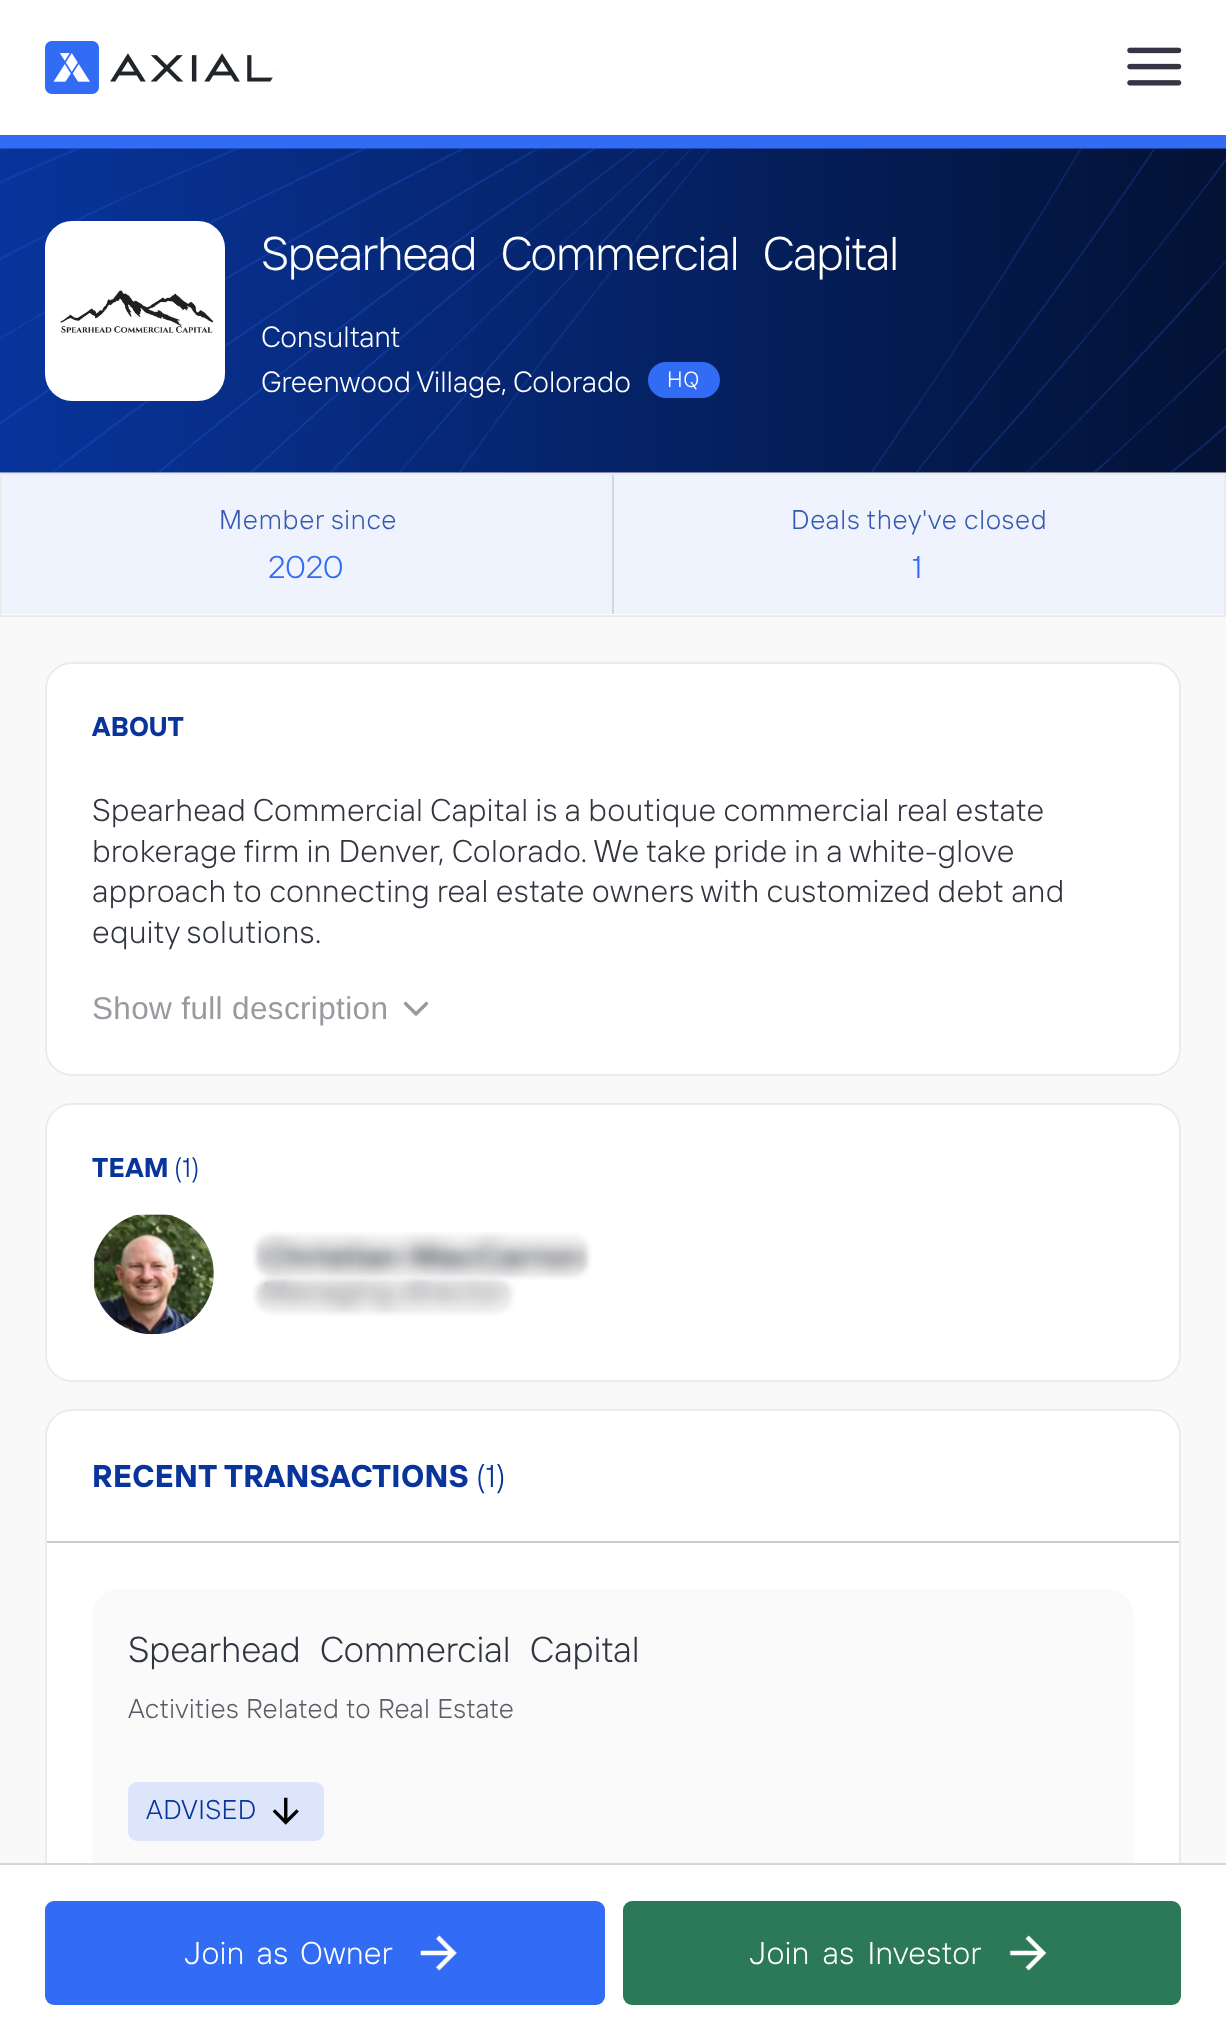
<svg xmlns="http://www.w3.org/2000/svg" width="1226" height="2040">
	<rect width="100%" height="100%" fill="#FFFFFF" />
	<image x="45" y="41" width="234" height="53" href="assets/img1.png" />
	<image x="1127" y="47" width="55" height="39" href="assets/img2.png" />
	<rect x="0" y="135" width="1226" height="14" fill="#326CF4" />
	<rect x="0" y="472" width="1226" height="1391" fill="#F9F9F9" />
	<image x="0" y="148" width="1226" height="325" href="assets/img3.png" />
	<rect x="45" y="221" width="180" height="180" rx="27" fill="#FFFFFF" />
	<image x="60" y="290" width="154" height="43" href="assets/img4.png" />
	<text x="261" y="270" word-spacing="16" font-family="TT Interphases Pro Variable" font-size="47.25" font-weight="300" letter-spacing="-1.25" fill="#FFFFFF">Spearhead Commercial Capital</text>
	<g font-family="TT Interphases Pro Variable" font-size="29.25" font-weight="300" fill="#FFFFFF">
		<text x="261" y="347">Consultant</text>
		<text x="261" y="392">Greenwood Village, Colorado</text>
	</g>
	<rect x="648" y="362" width="72" height="36" rx="18" fill="#326CF4" />
	<text x="667" y="387" font-family="TT Interphases Pro Variable" font-size="22" font-weight="300" letter-spacing="0.75" fill="#FFFFFF">HQ</text>
	<rect x="2" y="614" width="1222" height="1" fill="#FFFFFF" />
	<rect x="1" y="474" width="1224" height="142" fill="none" stroke="#EBEBEB" stroke-width="2" />
	<rect x="2" y="475" width="610" height="139" fill="#EFF3FE" />
	<text x="219" y="529" font-family="TT Interphases Pro Variable" font-size="27" font-weight="300" letter-spacing="0.75" fill="#365AAF">Member since</text>
	<rect x="612" y="475" width="2" height="139" fill="#D3D7E1" />
	<text x="268" y="578" font-family="TT Interphases Pro Variable" font-size="31.5" font-weight="300" letter-spacing="0.35" fill="#326CF4">2020</text>
	<rect x="614" y="475" width="610" height="139" fill="#EFF3FE" />
	<text x="791" y="529" font-family="TT Interphases Pro Variable" font-size="27" font-weight="300" letter-spacing="0.75" fill="#365AAF">Deals they've closed</text>
	<text x="912" y="578" font-family="TT Interphases Pro Variable" font-size="31.5" font-weight="300" letter-spacing="0.35" fill="#326CF4">1</text>
	<rect x="45" y="662" width="1136" height="414" rx="27" fill="#FFFFFF" />
	<rect x="46" y="663" width="1134" height="412" rx="26" fill="none" stroke="#000000" stroke-opacity="0.08" stroke-width="2" />
	<text x="92" y="736" font-family="TT Interphases Pro Variable" font-size="27" font-weight="700" letter-spacing="0.35" fill="#08349B">ABOUT</text>
	<g font-family="TT Interphases Pro Variable" font-size="31.5" font-weight="300" letter-spacing="0.35" fill="#31353F">
		<text x="92" y="821">Spearhead Commercial Capital is a boutique commercial real estate</text>
		<text x="92" y="862">brokerage firm in Denver, Colorado. We take pride in a white-glove</text>
		<text x="92" y="902">approach to connecting real estate owners with customized debt and</text>
		<text x="92" y="943">equity solutions.</text>
	</g>
	<text x="92" y="1019" font-family="Liberation Sans" font-size="31.5" letter-spacing="0.35" fill="#989A9F">Show full description</text>
	<path d="M426.5 1003.5L416 1014L405.5 1003.5" fill="none" stroke="#989A9F" stroke-width="3.4" stroke-linecap="round" stroke-linejoin="round" />
	<rect x="45" y="1103" width="1136" height="279" rx="27" fill="#FFFFFF" />
	<rect x="46" y="1104" width="1134" height="277" rx="26" fill="none" stroke="#000000" stroke-opacity="0.08" stroke-width="2" />
	<text x="92" y="1177" font-family="TT Interphases Pro Variable" font-size="27" font-weight="700" letter-spacing="0.35" fill="#08349B">TEAM</text>
	<text x="174" y="1177" font-family="TT Interphases Pro Variable" font-size="27" font-weight="300" letter-spacing="0.35" fill="#08349B">(1)</text>
	<rect x="92" y="1213" width="122" height="121" rx="60.5" fill="#E5E7EB" />
	<image x="92" y="1213" width="122" height="122" href="assets/img5.png" />
	<image x="252" y="1231" width="340" height="86" href="assets/img6.png" />
	<rect x="45" y="1409" width="1136" height="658" rx="27" fill="#FFFFFF" />
	<rect x="46" y="1410" width="1134" height="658" rx="26" fill="none" stroke="#000000" stroke-opacity="0.08" stroke-width="2" />
	<text x="92" y="1487" font-family="TT Interphases Pro Variable" font-size="31.5" font-weight="700" letter-spacing="0.35" fill="#08349B">RECENT TRANSACTIONS</text>
	<text x="476" y="1487" font-family="TT Interphases Pro Variable" font-size="31.5" font-weight="300" letter-spacing="0.35" fill="#08349B">(1)</text>
	<rect x="47" y="1541" width="1132" height="2" fill="#CCCCCC" />
	<rect x="92" y="1589" width="1042" height="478" rx="27" fill="#FAFAFA" />
	<text x="128" y="1662" word-spacing="12" font-family="TT Interphases Pro Variable" font-size="36" font-weight="300" fill="#31353F">Spearhead Commercial Capital</text>
	<text x="128" y="1718" word-spacing="1" font-family="TT Interphases Pro Variable" font-size="27" font-weight="300" letter-spacing="0.35" fill="#595C64">Activities Related to Real Estate</text>
	<rect x="128" y="1782" width="196" height="59" rx="9" fill="#DCE5F9" />
	<text x="146" y="1819" font-family="TT Interphases Pro Variable" font-size="27" font-weight="300" letter-spacing="0.35" fill="#08349B">ADVISED</text>
	<image x="272" y="1797" width="27" height="28" href="assets/img7.png" />
	<rect x="45" y="1865" width="1136" height="175" fill="#FFFFFF" />
	<rect x="0" y="1863" width="1226" height="2" fill="#D6D7D9" />
	<rect x="45" y="1901" width="560" height="104" rx="9" fill="#326CF4" />
	<text x="184" y="1964" word-spacing="5" font-family="TT Interphases Pro Variable" font-size="31.5" font-weight="300" letter-spacing="0.35" fill="#FFFFFF">Join as Owner</text>
	<image x="420" y="1935" width="37" height="36" href="assets/img8.png" />
	<rect x="623" y="1901" width="558" height="104" rx="9" fill="#2B7956" />
	<text x="749" y="1964" word-spacing="6" font-family="TT Interphases Pro Variable" font-size="31.5" font-weight="300" letter-spacing="0.35" fill="#FFFFFF">Join as Investor</text>
	<image x="1009" y="1935" width="38" height="36" href="assets/img9.png" />
</svg>
